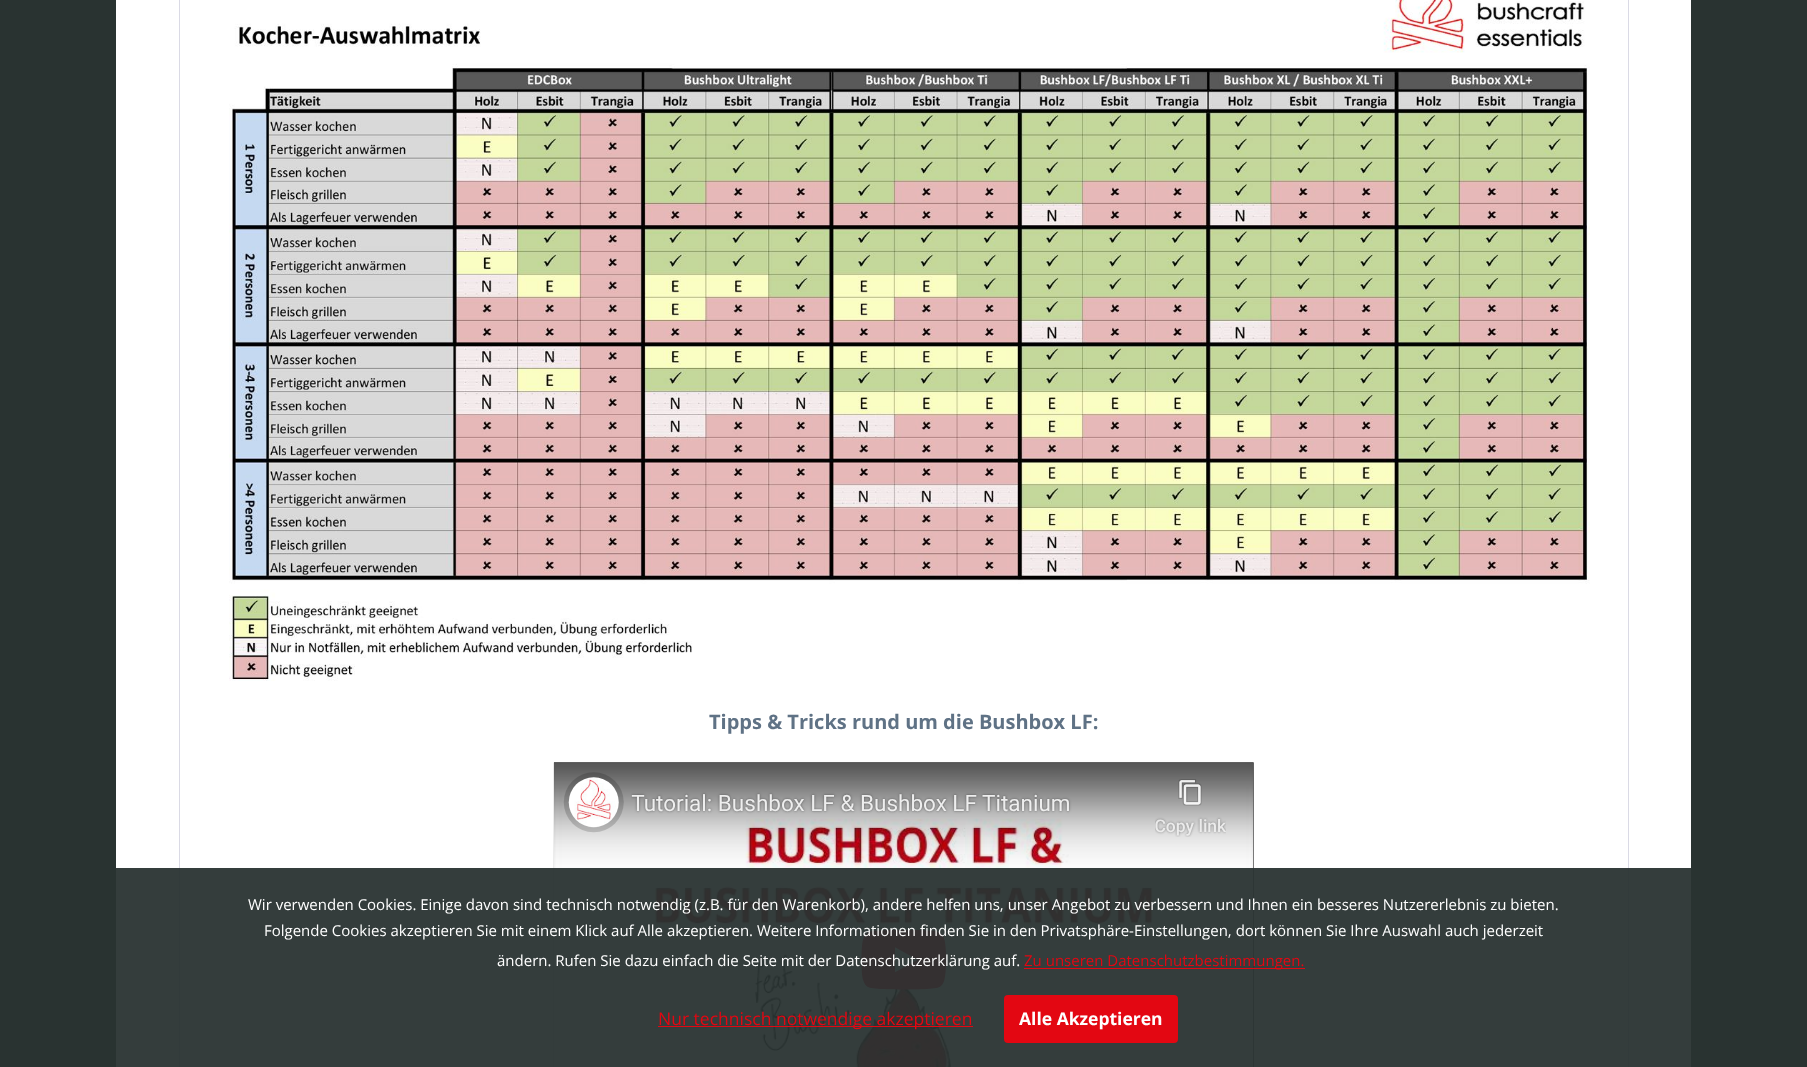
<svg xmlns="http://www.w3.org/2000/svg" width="1807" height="1067">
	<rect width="100%" height="100%" fill="#293331" />
	<rect x="116" y="0" width="1575" height="1067" fill="#FFFFFF" />
	<rect x="179.5" y="-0.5" width="1449" height="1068" fill="none" stroke="#DADAE5" />
	<image x="229" y="0" width="1361" height="681" href="assets/img1.png" />
	<text x="709" y="729" font-family="Open Sans" font-size="20" font-weight="700" fill="#5F7285">Tipps &amp; Tricks rund um die Bushbox LF:</text>
	<image x="553" y="762" width="701" height="305" href="assets/img2.png" />
	<rect x="116" y="868" width="1575" height="199" fill="#293331" fill-opacity="0.95" />
	<g font-family="Open Sans" font-size="15" fill="#FFFFFF">
		<text x="248" y="910">Wir verwenden Cookies. Einige davon sind technisch notwendig (z.B. für den Warenkorb), andere helfen uns, unser Angebot zu verbessern und Ihnen ein besseres Nutzererlebnis zu bieten.</text>
		<text x="264" y="936">Folgende Cookies akzeptieren Sie mit einem Klick auf Alle akzeptieren. Weitere Informationen finden Sie in den Privatsphäre-Einstellungen, dort können Sie Ihre Auswahl auch jederzeit</text>
		<text x="497" y="966">ändern. Rufen Sie dazu einfach die Seite mit der Datenschutzerklärung auf.</text>
	</g>
	<rect x="1024" y="968" width="281" height="1" fill="#E30712" />
	<text x="1024" y="966" font-family="Open Sans" font-size="15" fill="#E30712">Zu unseren Datenschutzbestimmungen.</text>
	<rect x="658" y="1026" width="315" height="1" fill="#E30712" />
	<text x="658" y="1025" font-family="Open Sans" font-size="17.5" fill="#E30712">Nur technisch notwendige akzeptieren</text>
	<rect x="1004" y="995" width="174" height="48" rx="4" fill="#E30712" />
	<text x="1019" y="1025" font-family="Open Sans" font-size="17.5" font-weight="700" fill="#FFFFFF">Alle Akzeptieren</text>
</svg>
